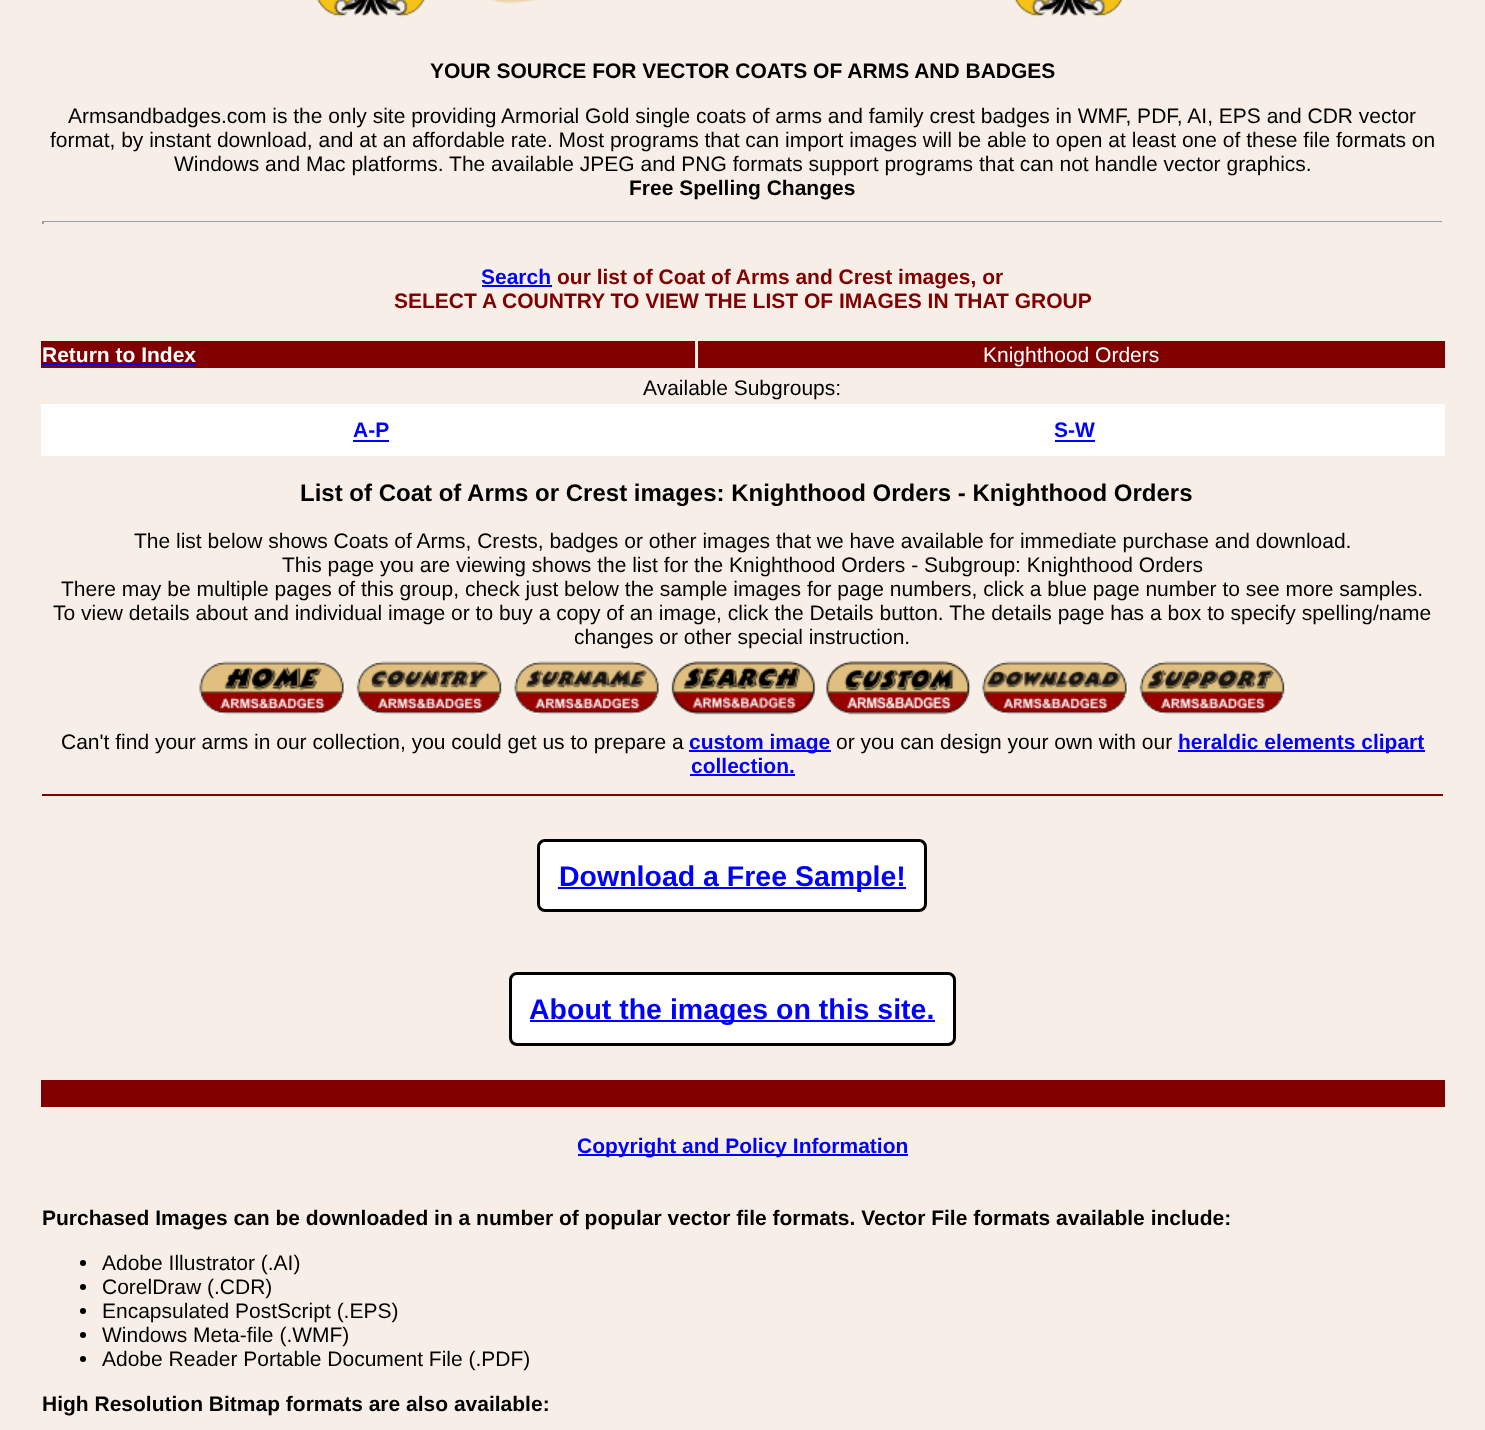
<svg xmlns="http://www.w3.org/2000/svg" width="1485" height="1430">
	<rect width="100%" height="100%" fill="#F7EFE7" />
	<image x="317" y="0" width="806" height="17" href="assets/img1.png" />
	<text x="430" y="78" font-family="Liberation Sans" font-size="21" font-weight="700" fill="#000000">YOUR SOURCE FOR VECTOR COATS OF ARMS AND BADGES</text>
	<g font-family="Liberation Sans" font-size="21" fill="#000000">
		<text x="68" y="123">Armsandbadges.com is the only site providing Armorial Gold single coats of arms and family crest badges in WMF, PDF, AI, EPS and CDR vector</text>
		<text x="50" y="147">format, by instant download, and at an affordable rate. Most programs that can import images will be able to open at least one of these file formats on</text>
		<text x="174" y="171">Windows and Mac platforms. The available JPEG and PNG formats support programs that can not handle vector graphics.</text>
	</g>
	<text x="629" y="195" font-family="Liberation Sans" font-size="21" font-weight="700" fill="#000000">Free Spelling Changes</text>
	<rect x="42" y="221" width="1401" height="1" fill="#9F9F9F" />
	<rect x="1442" y="221" width="2" height="3" fill="#EEEEEE" />
	<rect x="42" y="222" width="1401" height="2" fill="#EEEEEE" />
	<rect x="42" y="221" width="2" height="3" fill="#9F9F9F" />
	<text x="481" y="284" font-family="Liberation Sans" font-size="21" font-weight="700" fill="#0000FF">Search</text>
	<rect x="482" y="285" width="70" height="2" fill="#0000FF" />
	<g font-family="Liberation Sans" font-size="21" font-weight="700" fill="#800000">
		<text x="557" y="284">our list of Coat of Arms and Crest images, or</text>
		<text x="394" y="308">SELECT A COUNTRY TO VIEW THE LIST OF IMAGES IN THAT GROUP</text>
	</g>
	<rect x="41" y="341" width="654" height="27" fill="#800000" />
	<text x="42" y="362" font-family="Liberation Sans" font-size="21" font-weight="700" fill="#FFFFFF">Return to Index</text>
	<rect x="42" y="363" width="153" height="2" fill="#0000FF" />
	<rect x="698" y="341" width="747" height="27" fill="#800000" />
	<text x="983" y="362" font-family="Liberation Sans" font-size="21" fill="#FFFFFF">Knighthood Orders</text>
	<text x="643" y="395" font-family="Liberation Sans" font-size="21" fill="#000000">Available Subgroups:</text>
	<rect x="41" y="404" width="1404" height="52" fill="#FEFEFE" />
	<text x="353" y="437" font-family="Liberation Sans" font-size="21" font-weight="700" fill="#0000FF">A-P</text>
	<rect x="353" y="440" width="36" height="2" fill="#0000FF" />
	<text x="1054" y="437" font-family="Liberation Sans" font-size="21" font-weight="700" fill="#0000FF">S-W</text>
	<rect x="1055" y="440" width="40" height="2" fill="#0000FF" />
	<text x="300" y="501" font-family="Liberation Sans" font-size="24" font-weight="700" fill="#000000">List of Coat of Arms or Crest images: Knighthood Orders - Knighthood Orders</text>
	<g font-family="Liberation Sans" font-size="21" fill="#000000">
		<text x="134" y="548">The list below shows Coats of Arms, Crests, badges or other images that we have available for immediate purchase and download.</text>
		<text x="282" y="572">This page you are viewing shows the list for the Knighthood Orders - Subgroup: Knighthood Orders</text>
		<text x="61" y="596">There may be multiple pages of this group, check just below the sample images for page numbers, click a blue page number to see more samples.</text>
		<text x="53" y="620">To view details about and individual image or to buy a copy of an image, click the Details button. The details page has a box to specify spelling/name</text>
		<text x="574" y="644">changes or other special instruction.</text>
	</g>
	<image x="199" y="661" width="147" height="54" href="assets/img2.png" />
	<image x="356" y="661" width="147" height="54" href="assets/img3.png" />
	<image x="514" y="661" width="147" height="54" href="assets/img4.png" />
	<image x="671" y="661" width="146" height="54" href="assets/img5.png" />
	<image x="826" y="661" width="145" height="54" href="assets/img6.png" />
	<image x="982" y="661" width="147" height="54" href="assets/img7.png" />
	<image x="1139" y="661" width="147" height="54" href="assets/img8.png" />
	<text x="61" y="749" font-family="Liberation Sans" font-size="21" fill="#000000">Can't find your arms in our collection, you could get us to prepare a</text>
	<rect x="689" y="750" width="142" height="2" fill="#0000FF" />
	<text x="689" y="749" font-family="Liberation Sans" font-size="21" font-weight="700" fill="#0000FF">custom image</text>
	<text x="836" y="749" font-family="Liberation Sans" font-size="21" fill="#000000">or you can design your own with our</text>
	<rect x="1178" y="750" width="247" height="2" fill="#0000FF" />
	<g font-family="Liberation Sans" font-size="21" font-weight="700" fill="#0000FF">
		<text x="1178" y="749">heraldic elements clipart</text>
		<text x="691" y="773">collection.</text>
	</g>
	<rect x="690" y="774" width="105" height="2" fill="#0000FF" />
	<rect x="42" y="794" width="1401" height="2" fill="#800000" />
	<rect x="538.5" y="840.5" width="387" height="70" rx="6.5" fill="#FFFFFF" stroke="#000000" stroke-width="3" />
	<rect x="558" y="887" width="348" height="2" fill="#0000FF" />
	<text x="559" y="886" font-family="Liberation Sans" font-size="28.5" font-weight="700" fill="#0000FF">Download a Free Sample!</text>
	<rect x="510.5" y="973.5" width="444" height="71" rx="6.5" fill="#FFFFFF" stroke="#000000" stroke-width="3" />
	<rect x="530" y="1020" width="405" height="2" fill="#0000FF" />
	<text x="529" y="1019" font-family="Liberation Sans" font-size="28.5" font-weight="700" fill="#0000FF">About the images on this site.</text>
	<rect x="41" y="1080" width="1404" height="27" fill="#800000" />
	<rect x="578" y="1154" width="330" height="2" fill="#0000FF" />
	<text x="577" y="1153" font-family="Liberation Sans" font-size="21" font-weight="700" fill="#0000FF">Copyright and Policy Information</text>
	<text x="42" y="1225" font-family="Liberation Sans" font-size="21" font-weight="700" fill="#000000">Purchased Images can be downloaded in a number of popular vector file formats. Vector File formats available include:</text>
	<circle cx="83" cy="1263" r="3" fill="#000000" />
	<text x="102" y="1270" font-family="Liberation Sans" font-size="21" fill="#000000">Adobe Illustrator (.AI)</text>
	<circle cx="83" cy="1287" r="3" fill="#000000" />
	<text x="102" y="1294" font-family="Liberation Sans" font-size="21" fill="#000000">CorelDraw (.CDR)</text>
	<circle cx="83" cy="1311" r="3" fill="#000000" />
	<text x="102" y="1318" font-family="Liberation Sans" font-size="21" fill="#000000">Encapsulated PostScript (.EPS)</text>
	<circle cx="83" cy="1335" r="3" fill="#000000" />
	<text x="102" y="1342" font-family="Liberation Sans" font-size="21" fill="#000000">Windows Meta-file (.WMF)</text>
	<circle cx="83" cy="1359" r="3" fill="#000000" />
	<text x="102" y="1366" font-family="Liberation Sans" font-size="21" fill="#000000">Adobe Reader Portable Document File (.PDF)</text>
	<text x="42" y="1411" font-family="Liberation Sans" font-size="21" font-weight="700" fill="#000000">High Resolution Bitmap formats are also available:</text>
</svg>
